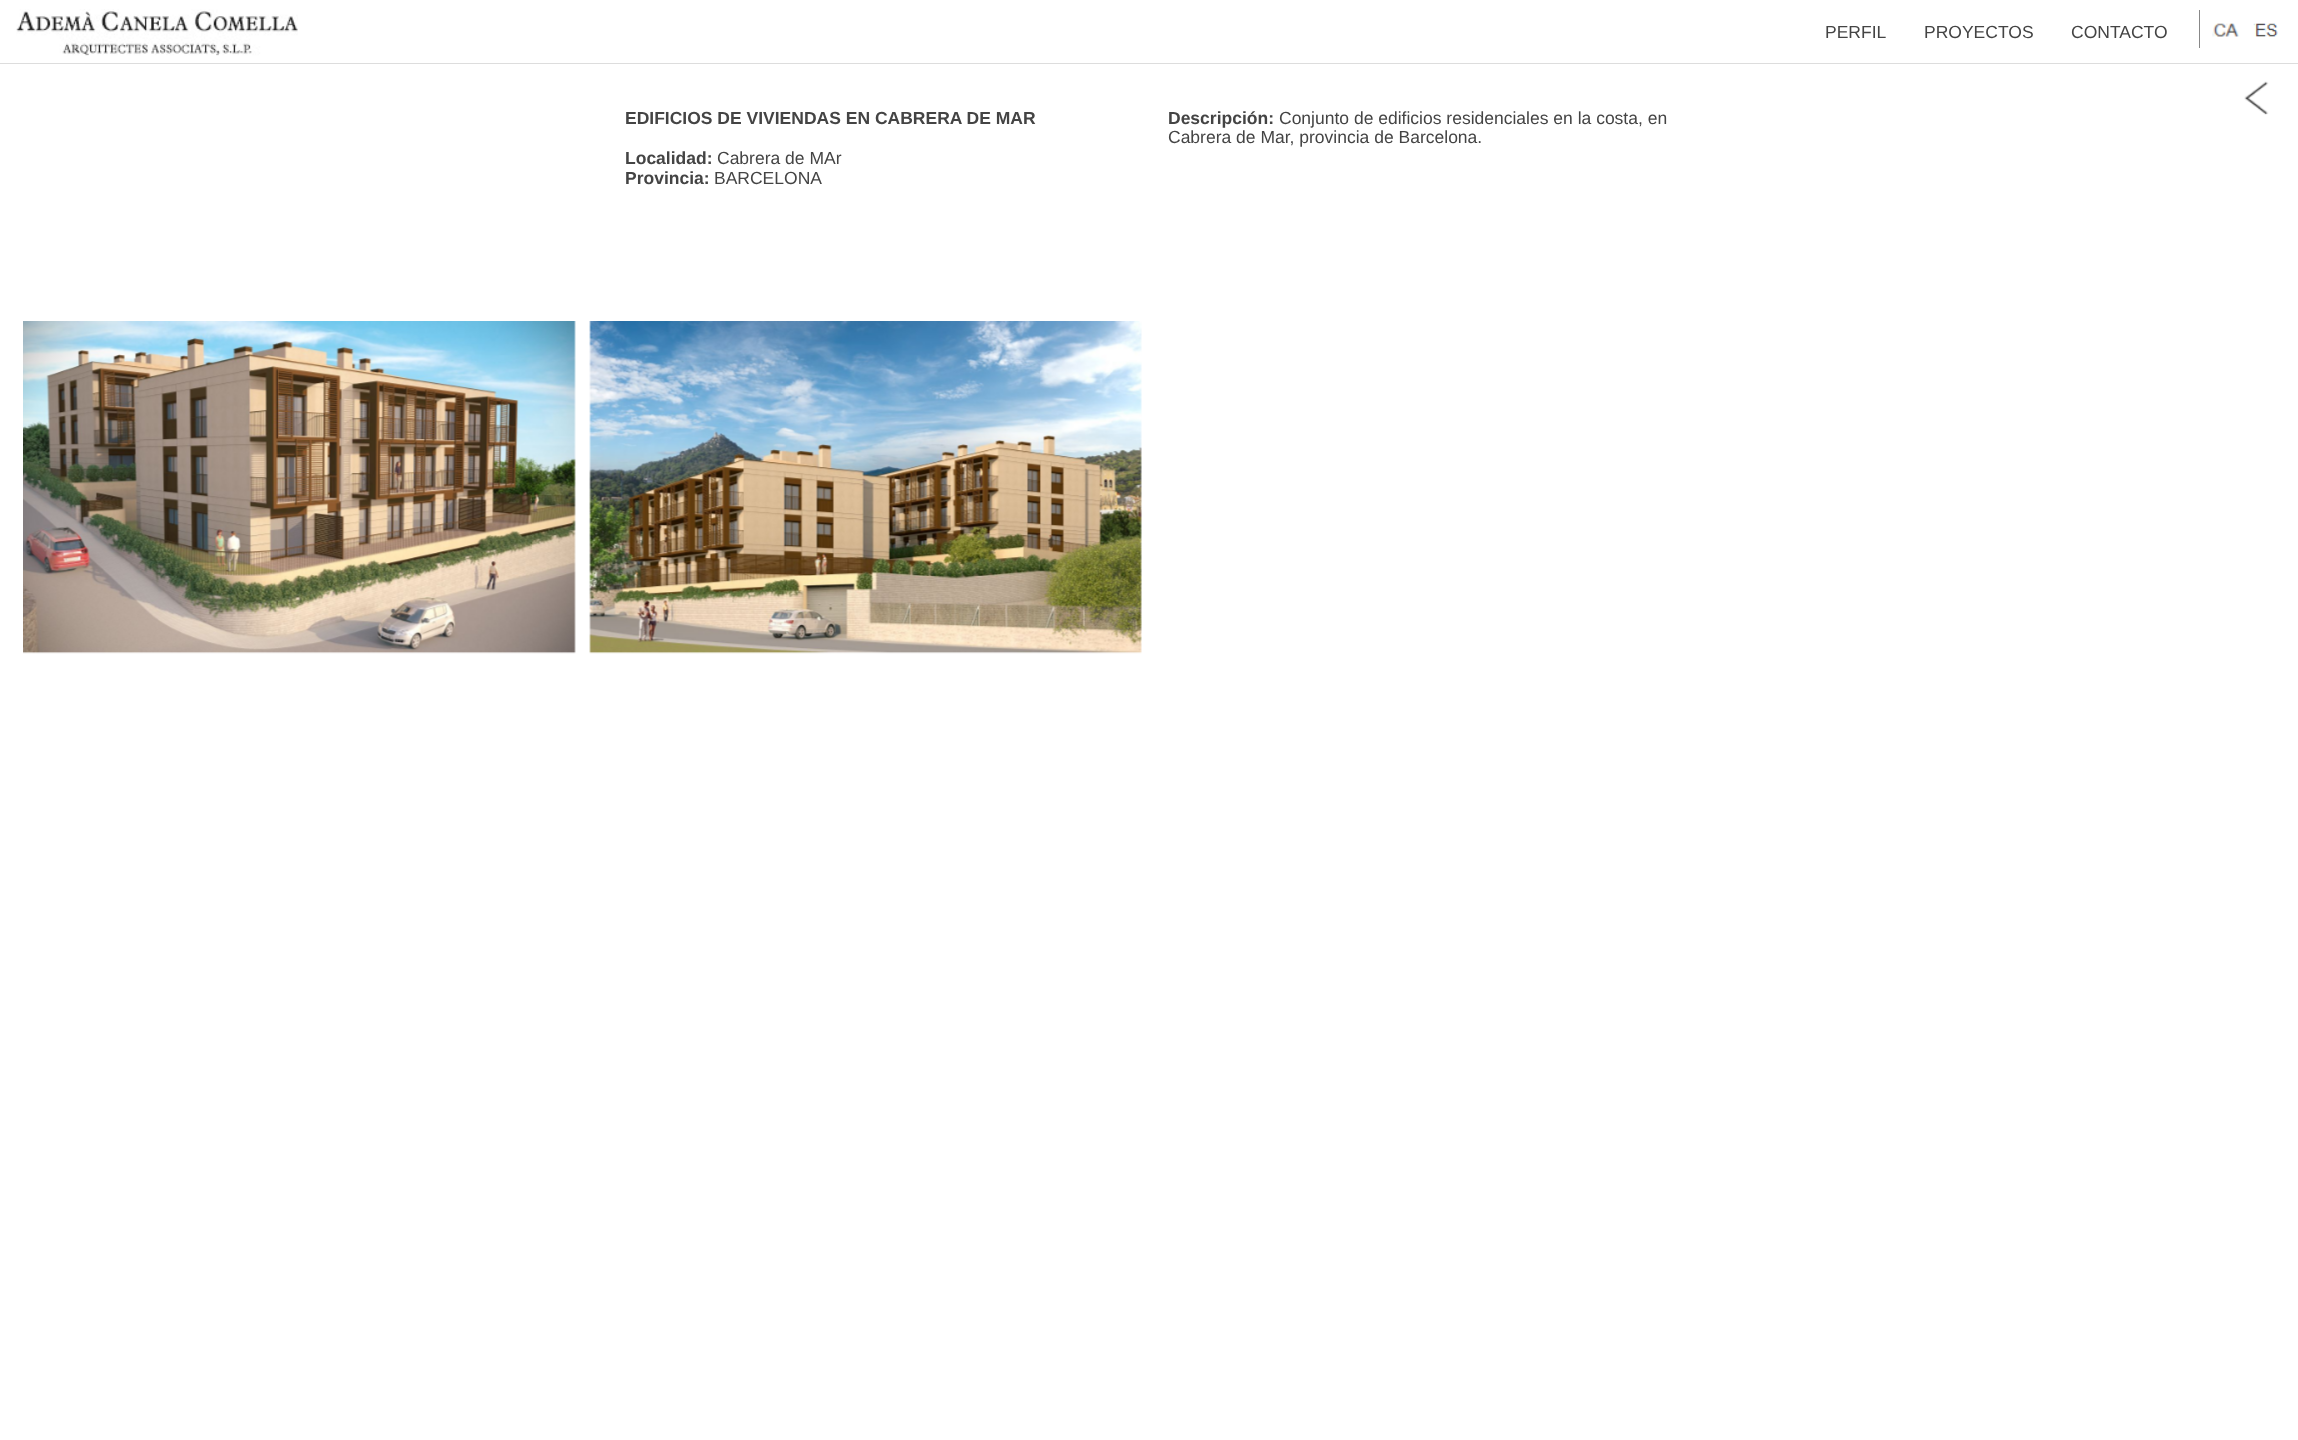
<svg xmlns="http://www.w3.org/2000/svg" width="2298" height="1440">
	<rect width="100%" height="100%" fill="#FFFFFF" />
	<rect x="0" y="63" width="2298" height="1" fill="#DDDDDD" />
	<image x="16" y="9" width="282" height="47" href="assets/img1.png" />
	<g font-family="Liberation Sans" font-size="17.5" fill="#444444">
		<text x="1825" y="38">PERFIL</text>
		<text x="1924" y="38">PROYECTOS</text>
		<text x="2071" y="38">CONTACTO</text>
	</g>
	<rect x="2199" y="10" width="1" height="38" fill="#888888" />
	<image x="2212" y="23" width="28" height="14" href="assets/img2.png" />
	<image x="2253" y="23" width="25" height="14" href="assets/img3.png" />
	<image x="2244" y="81" width="25" height="34" href="assets/img4.png" />
	<g font-family="Liberation Sans" font-size="17.5" font-weight="700" fill="#444444">
		<text x="625" y="124">EDIFICIOS DE VIVIENDAS EN CABRERA DE MAR</text>
		<text x="625" y="164">Localidad:</text>
	</g>
	<text x="717" y="164" font-family="Liberation Sans" font-size="17.5" fill="#444444">Cabrera de MAr</text>
	<text x="625" y="184" font-family="Liberation Sans" font-size="17.5" font-weight="700" fill="#444444">Provincia:</text>
	<text x="714" y="184" font-family="Liberation Sans" font-size="17.5" fill="#444444">BARCELONA</text>
	<text x="1168" y="124" font-family="Liberation Sans" font-size="17.5" font-weight="700" fill="#444444">Descripción:</text>
	<g font-family="Liberation Sans" font-size="17.5" fill="#444444">
		<text x="1279" y="124">Conjunto de edificios residenciales en la costa, en</text>
		<text x="1168" y="143">Cabrera de Mar, provincia de Barcelona.</text>
	</g>
	<image x="23" y="321" width="553" height="333" href="assets/img5.png" />
	<image x="589" y="321" width="553" height="333" href="assets/img6.png" />
</svg>
